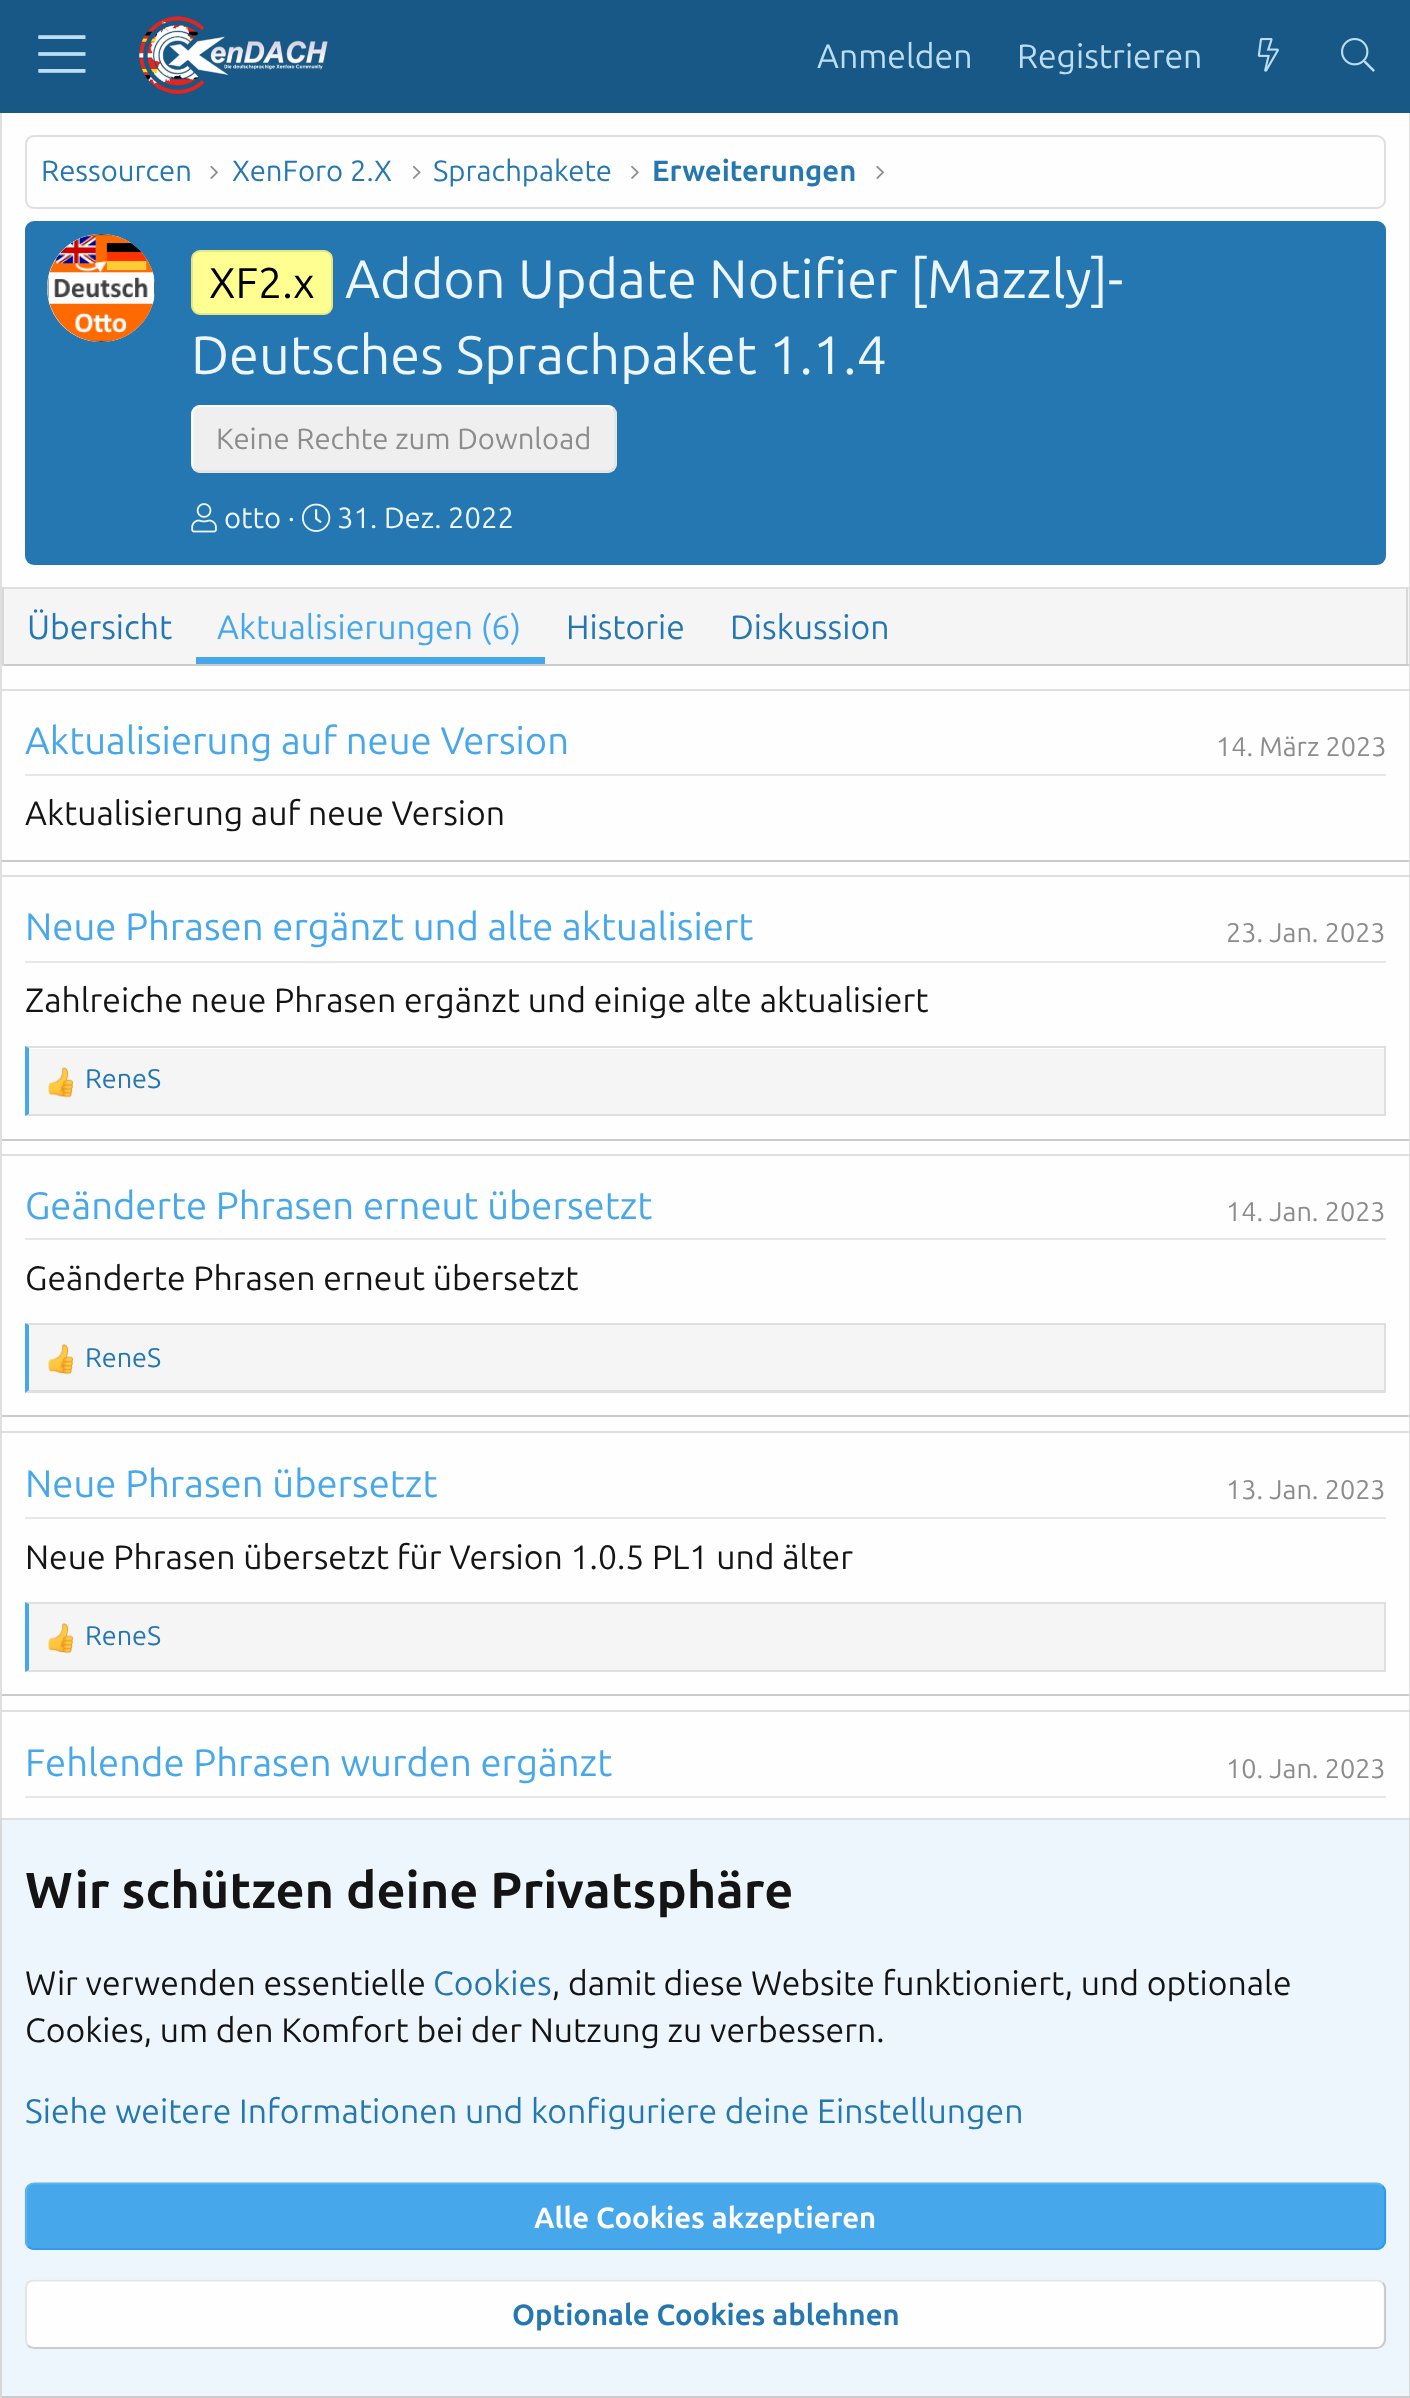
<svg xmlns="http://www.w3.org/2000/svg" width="1410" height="2398">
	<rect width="100%" height="100%" fill="#FEFEFE" />
	<rect x="0" y="0" width="1410" height="113" fill="#185886" />
	<image x="38" y="35" width="48" height="38" href="assets/img1.png" />
	<image x="139" y="16" width="189" height="79" href="assets/img2.png" />
	<g font-family="Ubuntu" font-size="33.75" fill="#BCDEF5">
		<text x="817" y="68">Anmelden</text>
		<text x="1017" y="68">Registrieren</text>
	</g>
	<image x="1257" y="38" width="22" height="34" href="assets/img3.png" />
	<image x="1341" y="38" width="34" height="34" href="assets/img4.png" />
	<rect x="1409" y="113" width="1" height="1705" fill="#DFDFDF" />
	<rect x="0" y="113" width="2" height="1705" fill="#DFDFDF" />
	<rect x="26" y="136" width="1359" height="72" rx="8" fill="none" stroke="#DFDFDF" stroke-width="2" />
	<text x="41" y="181" font-family="Ubuntu" font-size="29.25" fill="#2577B1">Ressourcen</text>
	<image x="210" y="165" width="8" height="14" href="assets/img5.png" />
	<text x="232" y="181" font-family="Ubuntu" font-size="29.25" fill="#2577B1">XenForo 2.X</text>
	<image x="412" y="165" width="9" height="14" href="assets/img6.png" />
	<text x="433" y="181" font-family="Ubuntu" font-size="29.25" fill="#2577B1">Sprachpakete</text>
	<image x="631" y="165" width="8" height="14" href="assets/img7.png" />
	<text x="652" y="181" font-family="Ubuntu" font-size="29.25" font-weight="700" fill="#2577B1">Erweiterungen</text>
	<image x="876" y="165" width="8" height="14" href="assets/img5.png" />
	<rect x="25" y="221" width="1361" height="344" rx="9" fill="#2577B1" />
	<circle cx="101" cy="288" r="54" fill="#FEFEFE" />
	<image x="47" y="234" width="108" height="108" href="assets/img8.png" />
	<rect x="192" y="251" width="140" height="63" rx="8" fill="#FFFF91" stroke="#E6E687" stroke-width="2" />
	<text x="209" y="298" font-family="Ubuntu" font-size="43" fill="#000000">XF2.x</text>
	<g font-family="Ubuntu" font-size="54" fill="#EDF6FD">
		<text x="345" y="298">Addon Update Notifier [Mazzly]-</text>
		<text x="191" y="374">Deutsches Sprachpaket 1.1.4</text>
	</g>
	<rect x="191" y="405" width="426" height="68" rx="9" fill="#EFEFEF" />
	<path d="M613 408.5C614.5 410 615.5 412 615.5 414V463.5C615.5 465.5 614.5 467.5 613 469C611.5 470.5 609.5 471.5 607.5 471.5H200C198 471.5 196 470.5 194.5 469" fill="none" stroke="#E2E2E2" stroke-width="2.2" />
	<path d="M194.5 469C193 467.5 192.5 465.5 192.5 463.5V414C192.5 412 193 410 194.5 408.5C196 407 198 406 200 406H607.5C609.5 406 611.5 407 613 408.5" fill="none" stroke="#FBFBFB" stroke-width="2.2" />
	<text x="216" y="449" font-family="Ubuntu" font-size="29.25" fill="#8C8C8C">Keine Rechte zum Download</text>
	<image x="191" y="503" width="26" height="30" href="assets/img9.png" />
	<text x="224" y="528" font-family="Ubuntu" font-size="29.25" fill="#EDF6FD">otto ·</text>
	<image x="302" y="503" width="29" height="29" href="assets/img10.png" />
	<text x="337" y="528" font-family="Ubuntu" font-size="29.25" fill="#EDF6FD">31. Dez. 2022</text>
	<rect x="4" y="589" width="1405" height="75" fill="#F5F5F5" />
	<rect x="2" y="587" width="1407" height="2" fill="#DFDFDF" />
	<rect x="1406" y="587" width="2" height="79" fill="#D8D8D8" />
	<rect x="2" y="664" width="1407" height="2" fill="#CBCBCB" />
	<rect x="2" y="587" width="2" height="79" fill="#D8D8D8" />
	<text x="27" y="639" font-family="Ubuntu" font-size="33.75" fill="#2577B1">Übersicht</text>
	<rect x="196" y="657" width="349" height="7" fill="#47A7EB" />
	<text x="217" y="639" font-family="Ubuntu" font-size="33.75" fill="#47A7EB">Aktualisierungen (6)</text>
	<g font-family="Ubuntu" font-size="33.75" fill="#2577B1">
		<text x="566" y="639">Historie</text>
		<text x="730" y="639">Diskussion</text>
	</g>
	<rect x="2" y="689" width="1407" height="2" fill="#DFDFDF" />
	<rect x="2" y="860" width="1407" height="2" fill="#CBCBCB" />
	<rect x="25" y="774" width="1361" height="2" fill="#E7E7E7" />
	<text x="25" y="754" font-family="Ubuntu" font-size="38.25" fill="#47A7EB">Aktualisierung auf neue Version</text>
	<text x="1216" y="756" font-family="Ubuntu" font-size="27" fill="#8C8C8C">14. März 2023</text>
	<text x="25" y="825" font-family="Ubuntu" font-size="33.75" fill="#141414">Aktualisierung auf neue Version</text>
	<rect x="2" y="875" width="1407" height="2" fill="#DFDFDF" />
	<rect x="2" y="1139" width="1407" height="2" fill="#CBCBCB" />
	<rect x="25" y="961" width="1361" height="2" fill="#E7E7E7" />
	<text x="25" y="940" font-family="Ubuntu" font-size="38.25" fill="#47A7EB">Neue Phrasen ergänzt und alte aktualisiert</text>
	<text x="1226" y="942" font-family="Ubuntu" font-size="27" fill="#8C8C8C">23. Jan. 2023</text>
	<text x="25" y="1012" font-family="Ubuntu" font-size="33.75" fill="#141414">Zahlreiche neue Phrasen ergänzt und einige alte aktualisiert</text>
	<rect x="29" y="1049" width="1355" height="65" fill="#F5F5F5" />
	<path d="M25 1046H1386L1384 1048H29Z" fill="#DFDFDF" />
	<rect x="1384" y="1046" width="2" height="70" fill="#DFDFDF" />
	<path d="M1386 1116H25L29 1114H1384Z" fill="#DFDFDF" />
	<path d="M25 1116V1046L29 1048V1114Z" fill="#47A7EB" />
	<image x="48" y="1067" width="25" height="31" href="assets/img11.png" />
	<text x="85" y="1088" font-family="Ubuntu" font-size="27" fill="#2577B1">ReneS</text>
	<rect x="2" y="1154" width="1407" height="2" fill="#DFDFDF" />
	<rect x="2" y="1415" width="1407" height="2" fill="#CBCBCB" />
	<rect x="25" y="1238" width="1361" height="2" fill="#E7E7E7" />
	<text x="25" y="1219" font-family="Ubuntu" font-size="38.25" fill="#47A7EB">Geänderte Phrasen erneut übersetzt</text>
	<text x="1226" y="1221" font-family="Ubuntu" font-size="27" fill="#8C8C8C">14. Jan. 2023</text>
	<text x="25" y="1290" font-family="Ubuntu" font-size="33.75" fill="#141414">Geänderte Phrasen erneut übersetzt</text>
	<rect x="29" y="1325" width="1355" height="65" fill="#F5F5F5" />
	<path d="M25 1323H1386L1384 1325H29Z" fill="#DFDFDF" />
	<rect x="1384" y="1323" width="2" height="70" fill="#DFDFDF" />
	<path d="M1386 1393H25L29 1390H1384Z" fill="#DFDFDF" />
	<path d="M25 1393V1323L29 1325V1390Z" fill="#47A7EB" />
	<image x="48" y="1343" width="25" height="32" href="assets/img12.png" />
	<text x="85" y="1367" font-family="Ubuntu" font-size="27" fill="#2577B1">ReneS</text>
	<rect x="2" y="1431" width="1407" height="2" fill="#DFDFDF" />
	<rect x="2" y="1694" width="1407" height="2" fill="#CBCBCB" />
	<rect x="25" y="1517" width="1361" height="2" fill="#E7E7E7" />
	<text x="25" y="1497" font-family="Ubuntu" font-size="38.25" fill="#47A7EB">Neue Phrasen übersetzt</text>
	<text x="1226" y="1499" font-family="Ubuntu" font-size="27" fill="#8C8C8C">13. Jan. 2023</text>
	<text x="25" y="1569" font-family="Ubuntu" font-size="33.75" fill="#141414">Neue Phrasen übersetzt für Version 1.0.5 PL1 und älter</text>
	<rect x="29" y="1604" width="1355" height="66" fill="#F5F5F5" />
	<path d="M25 1602H1386L1384 1604H29Z" fill="#DFDFDF" />
	<rect x="1384" y="1602" width="2" height="70" fill="#DFDFDF" />
	<path d="M1386 1672H25L29 1670H1384Z" fill="#DFDFDF" />
	<path d="M25 1672V1602L29 1604V1670Z" fill="#47A7EB" />
	<image x="48" y="1622" width="25" height="32" href="assets/img12.png" />
	<text x="85" y="1645" font-family="Ubuntu" font-size="27" fill="#2577B1">ReneS</text>
	<rect x="2" y="1710" width="1407" height="2" fill="#DFDFDF" />
	<rect x="25" y="1796" width="1361" height="2" fill="#E7E7E7" />
	<text x="25" y="1776" font-family="Ubuntu" font-size="38.25" fill="#47A7EB">Fehlende Phrasen wurden ergänzt</text>
	<text x="1226" y="1778" font-family="Ubuntu" font-size="27" fill="#8C8C8C">10. Jan. 2023</text>
	<rect x="2" y="1820" width="1407" height="576" fill="#EDF6FD" />
	<rect x="0" y="1818" width="1410" height="2" fill="#DFDFDF" />
	<rect x="1409" y="1818" width="1" height="580" fill="#D8D8D8" />
	<rect x="0" y="2396" width="1410" height="2" fill="#CBCBCB" />
	<rect x="0" y="1818" width="2" height="580" fill="#D8D8D8" />
	<text x="25" y="1908" font-family="Ubuntu" font-size="50.6" font-weight="700" fill="#141414">Wir schützen deine Privatsphäre</text>
	<text x="25" y="1995" font-family="Ubuntu" font-size="33.75" fill="#141414">Wir verwenden essentielle</text>
	<text x="433" y="1995" font-family="Ubuntu" font-size="33.75" fill="#2577B1">Cookies</text>
	<g font-family="Ubuntu" font-size="33.75" fill="#141414">
		<text x="552" y="1995">, damit diese Website funktioniert, und optionale</text>
		<text x="25" y="2042">Cookies, um den Komfort bei der Nutzung zu verbessern.</text>
	</g>
	<text x="25" y="2123" font-family="Ubuntu" font-size="33.75" fill="#2577B1">Siehe weitere Informationen und konfiguriere deine Einstellungen</text>
	<rect x="25" y="2183" width="1361" height="67" rx="9" fill="#47A7EB" />
	<path d="M1382.5 2186C1384 2187.5 1385 2189.5 1385 2191.5V2241C1385 2243 1384 2245 1382.5 2246.5C1381 2248 1379 2249 1377 2249H34C31.5 2249 29.5 2248 28 2246.5" fill="none" stroke="#309CE8" stroke-width="2.2" />
	<path d="M28 2246.5C26.5 2245 26 2243 26 2241V2191.5C26 2189.5 26.5 2187.5 28 2186C29.5 2184.5 31.5 2183.5 34 2183.5H1377C1379 2183.5 1381 2184.5 1382.5 2186" fill="none" stroke="#5EB2ED" stroke-width="2.2" />
	<text x="534" y="2228" font-family="Ubuntu" font-size="29.25" font-weight="700" fill="#FFFFFF">Alle Cookies akzeptieren</text>
	<rect x="25" y="2279" width="1361" height="70" rx="9" fill="#FEFEFE" />
	<path d="M1382.5 2282.5C1384 2284 1385 2286 1385 2288V2340C1385 2342 1384 2344 1382.5 2345.5C1381 2347 1379 2348 1377 2348H34C31.5 2348 29.5 2347 28 2345.5" fill="none" stroke="#CBCBCB" stroke-width="2.2" />
	<path d="M28 2345.5C26.5 2344 26 2342 26 2340V2288C26 2286 26.5 2284 28 2282.5C29.5 2281 31.5 2280.5 34 2280.5H1377C1379 2280.5 1381 2281 1382.5 2282.5" fill="none" stroke="#E5E5E5" stroke-width="2.2" />
	<text x="512" y="2325" font-family="Ubuntu" font-size="29.25" font-weight="700" fill="#2577B1">Optionale Cookies ablehnen</text>
</svg>
